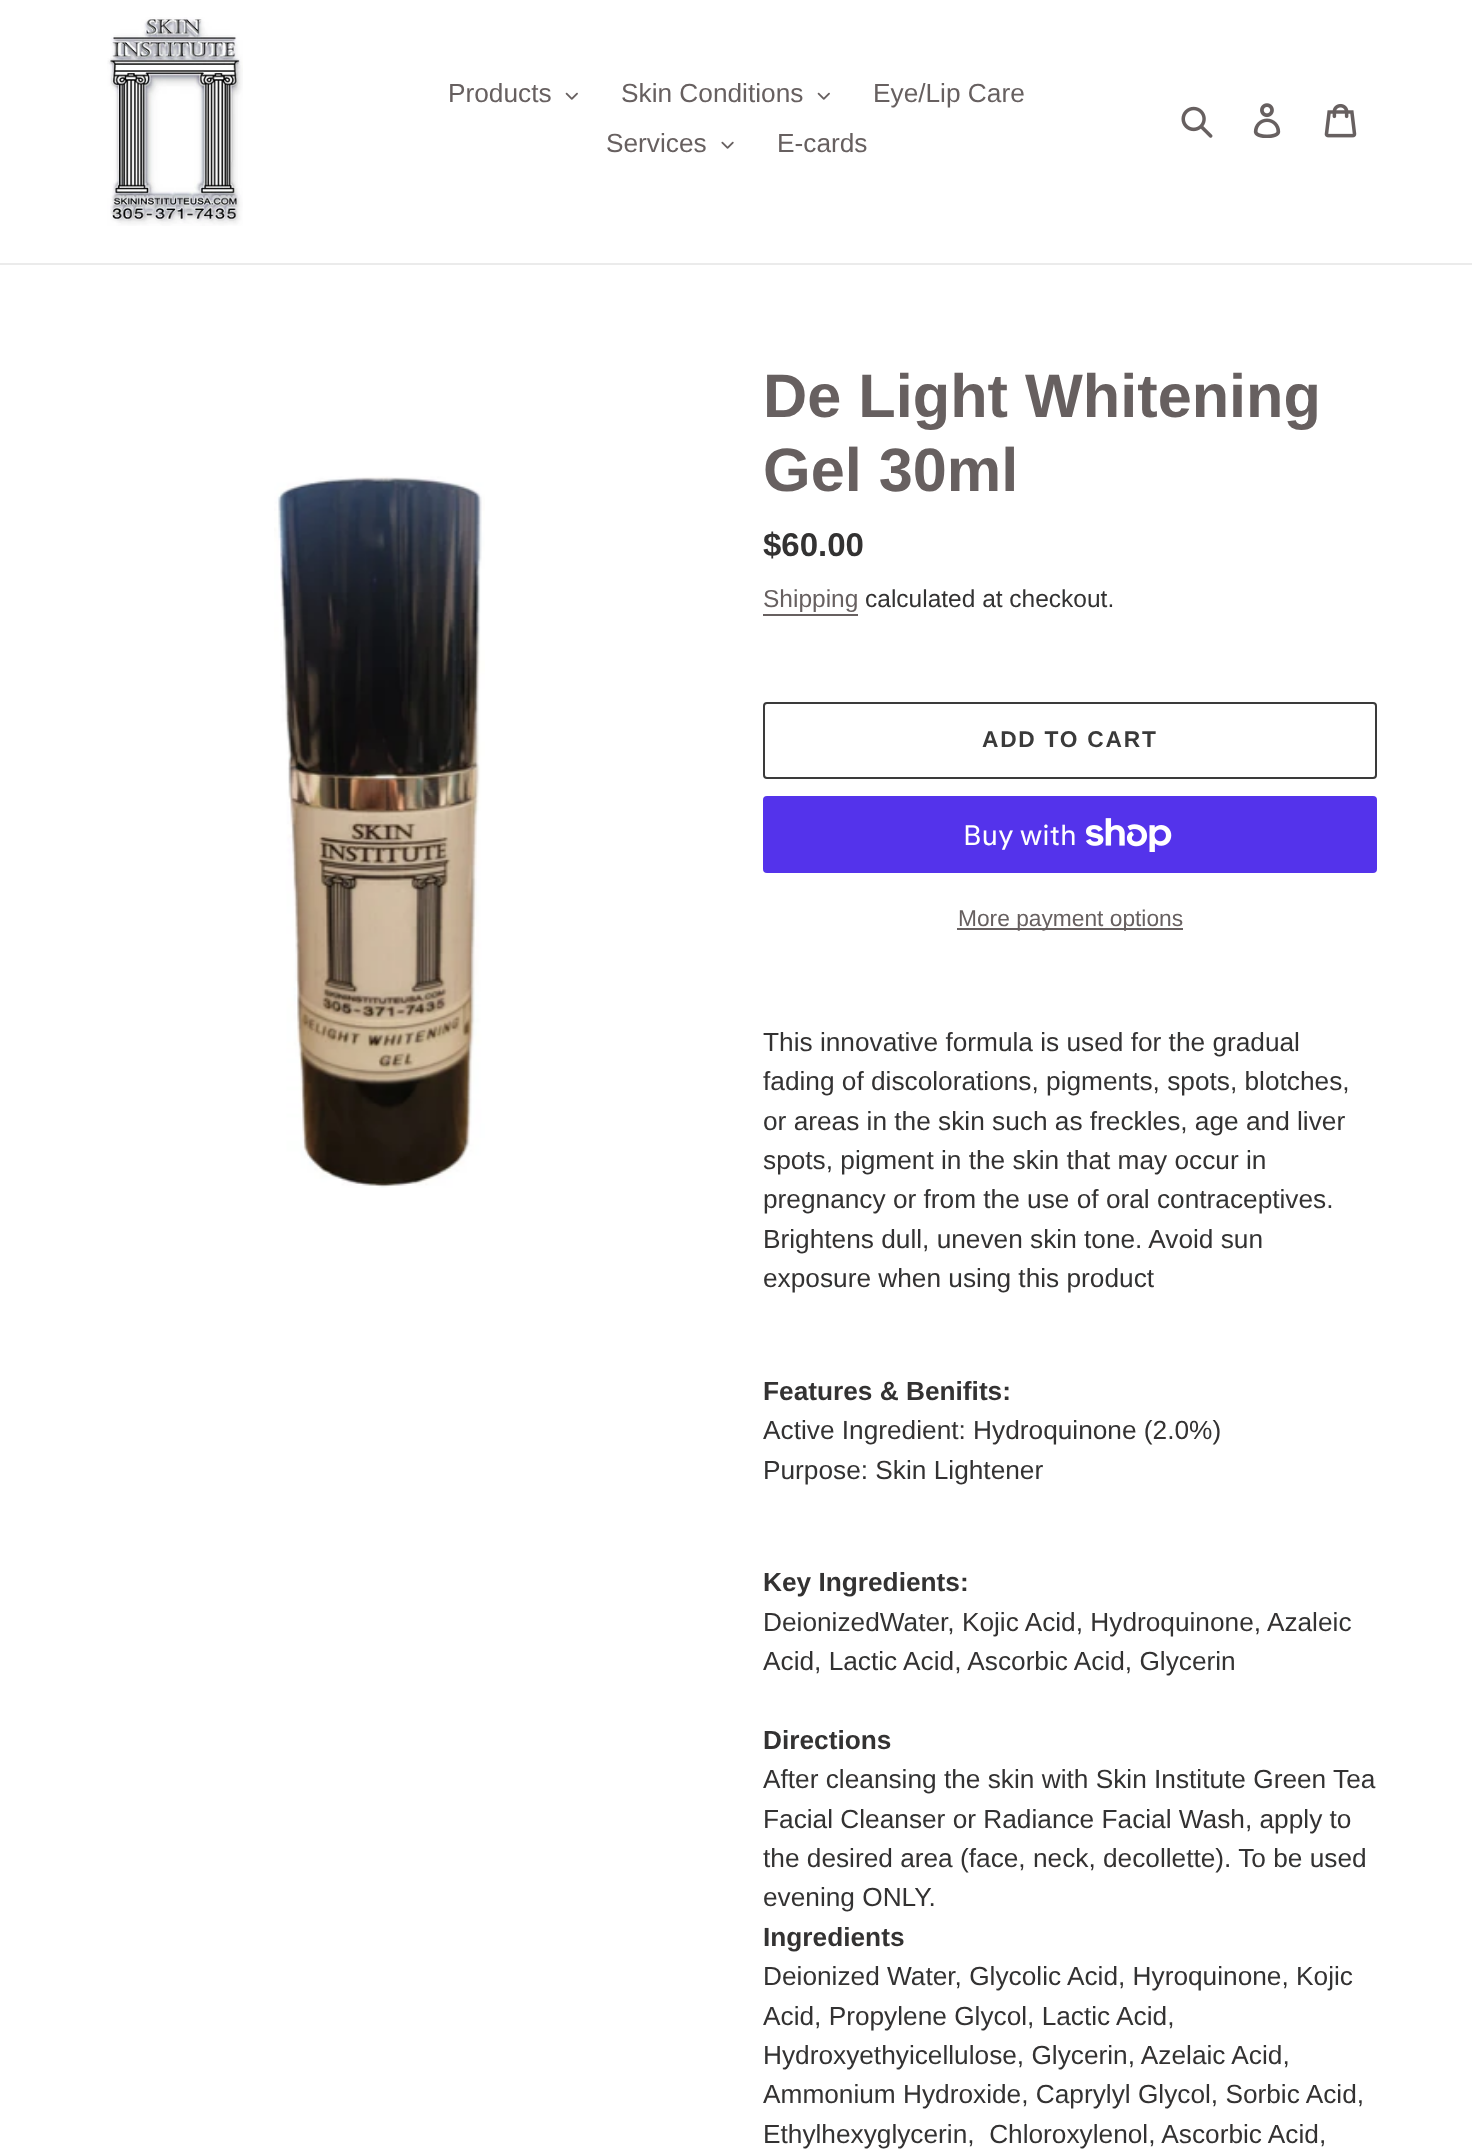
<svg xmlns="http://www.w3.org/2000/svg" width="1472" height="2149">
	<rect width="100%" height="100%" fill="#FFFFFF" />
	<rect x="0" y="263" width="1472" height="2" fill="#EBEBEB" />
	<image x="107" y="17" width="136" height="209" href="assets/img1.png" />
	<text x="448" y="102" font-family="Liberation Sans" font-size="26.25" fill="#676060">Products</text>
	<image x="565" y="92" width="13" height="8" href="assets/img2.png" />
	<text x="621" y="102" font-family="Liberation Sans" font-size="26.25" fill="#676060">Skin Conditions</text>
	<image x="817" y="92" width="13" height="8" href="assets/img2.png" />
	<g font-family="Liberation Sans" font-size="26.25" fill="#676060">
		<text x="873" y="102">Eye/Lip Care</text>
		<text x="606" y="152">Services</text>
	</g>
	<image x="721" y="141" width="13" height="8" href="assets/img3.png" />
	<text x="777" y="152" font-family="Liberation Sans" font-size="26.25" fill="#676060">E-cards</text>
	<image x="1181" y="106" width="32" height="32" href="assets/img4.png" />
	<image x="1253" y="103" width="28" height="35" href="assets/img5.png" />
	<image x="1324" y="103" width="33" height="35" href="assets/img6.png" />
	<image x="274" y="476" width="211" height="712" href="assets/img7.png" />
	<g font-family="Liberation Sans" font-size="61.25" font-weight="700" fill="#676060">
		<text x="763" y="417">De Light Whitening</text>
		<text x="763" y="491">Gel 30ml</text>
	</g>
	<text x="763" y="556" font-family="Liberation Sans" font-size="33" font-weight="700" fill="#333232">$60.00</text>
	<text x="763" y="607" font-family="Liberation Sans" font-size="24.5" fill="#676060">Shipping</text>
	<rect x="763" y="614" width="95" height="2" fill="#676060" />
	<text x="865" y="607" font-family="Liberation Sans" font-size="24.5" fill="#333232">calculated at checkout.</text>
	<rect x="764" y="703" width="612" height="75" rx="3" fill="none" stroke="#3A3A3A" stroke-width="2" />
	<text x="982" y="747" font-family="Liberation Sans" font-size="22.75" font-weight="700" letter-spacing="1.75" fill="#3A3A3A">ADD TO CART</text>
	<rect x="763" y="796" width="614" height="77" rx="4" fill="#5433EB" />
	<text x="963" y="845" font-family="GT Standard" font-size="28" fill="#FFFFFF">Buy with</text>
	<image x="1086" y="818" width="86" height="34" href="assets/img8.png" />
	<rect x="957" y="928" width="226" height="2" fill="#676060" />
	<text x="958" y="926" font-family="Liberation Sans" font-size="22.75" fill="#676060">More payment options</text>
	<g font-family="Liberation Sans" font-size="26.25" fill="#333232">
		<text x="763" y="1051">This innovative formula is used for the gradual</text>
		<text x="763" y="1090">fading of discolorations, pigments, spots, blotches,</text>
		<text x="763" y="1130">or areas in the skin such as freckles, age and liver</text>
		<text x="763" y="1169">spots, pigment in the skin that may occur in</text>
		<text x="763" y="1208">pregnancy or from the use of oral contraceptives.</text>
		<text x="763" y="1248">Brightens dull, uneven skin tone. Avoid sun</text>
		<text x="763" y="1287">exposure when using this product</text>
	</g>
	<text x="763" y="1400" font-family="Liberation Sans" font-size="26.25" font-weight="700" fill="#333232">Features &amp; Benifits:</text>
	<g font-family="Liberation Sans" font-size="26.25" fill="#333232">
		<text x="763" y="1439">Active Ingredient: Hydroquinone (2.0%)</text>
		<text x="763" y="1479">Purpose: Skin Lightener</text>
	</g>
	<text x="763" y="1591" font-family="Liberation Sans" font-size="26.25" font-weight="700" fill="#333232">Key Ingredients:</text>
	<g font-family="Liberation Sans" font-size="26.25" fill="#333232">
		<text x="763" y="1631">DeionizedWater, Kojic Acid, Hydroquinone, Azaleic</text>
		<text x="763" y="1670">Acid, Lactic Acid, Ascorbic Acid, Glycerin</text>
	</g>
	<text x="763" y="1749" font-family="Liberation Sans" font-size="26.25" font-weight="700" fill="#333232">Directions</text>
	<g font-family="Liberation Sans" font-size="26.25" fill="#333232">
		<text x="763" y="1788">After cleansing the skin with Skin Institute Green Tea</text>
		<text x="763" y="1828">Facial Cleanser or Radiance Facial Wash, apply to</text>
		<text x="763" y="1867">the desired area (face, neck, decollette). To be used</text>
		<text x="763" y="1906">evening ONLY.</text>
	</g>
	<text x="763" y="1946" font-family="Liberation Sans" font-size="26.25" font-weight="700" fill="#333232">Ingredients</text>
	<g font-family="Liberation Sans" font-size="26.25" fill="#333232">
		<text x="763" y="1985">Deionized Water, Glycolic Acid, Hyroquinone, Kojic</text>
		<text x="763" y="2025">Acid, Propylene Glycol, Lactic Acid,</text>
		<text x="763" y="2064">Hydroxyethyicellulose, Glycerin, Azelaic Acid,</text>
		<text x="763" y="2103">Ammonium Hydroxide, Caprylyl Glycol, Sorbic Acid,</text>
		<text x="763" y="2143" xml:space="preserve">Ethylhexyglycerin,  Chloroxylenol, Ascorbic Acid,</text>
	</g>
</svg>
